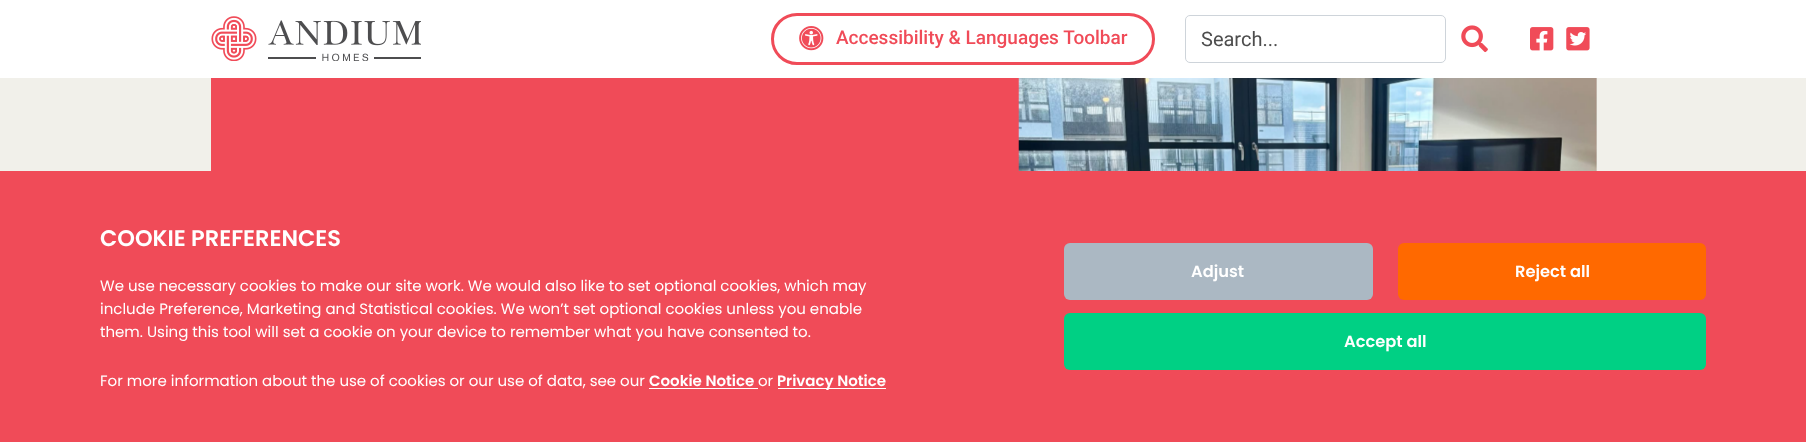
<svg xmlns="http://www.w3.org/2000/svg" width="1806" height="442">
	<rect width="100%" height="100%" fill="#F1F0EA" />
	<rect x="0" y="0" width="1806" height="78" fill="#FFFFFF" />
	<image x="211" y="16" width="210" height="45" href="assets/img1.png" />
	<rect x="772.5" y="14.5" width="381" height="49" rx="24.5" fill="none" stroke="#F04B58" stroke-width="3" />
	<image x="799" y="26" width="25" height="25" href="assets/img2.png" />
	<text x="836" y="44" font-family="Roboto" font-size="19" font-weight="500" fill="#F04B58">Accessibility &amp; Languages Toolbar</text>
	<rect x="1185.5" y="15.5" width="260" height="47" rx="4.5" fill="none" stroke="#CED4DA" />
	<text x="1201" y="46" font-family="Roboto" font-size="20" fill="#4D4D4D">Search...</text>
	<image x="1461" y="25" width="27" height="28" href="assets/img3.png" />
	<image x="1530" y="27" width="24" height="24" href="assets/img4.png" />
	<image x="1566" y="27" width="24" height="24" href="assets/img5.png" />
	<rect x="211" y="78" width="1385" height="93" fill="#F04B58" />
	<image x="1018" y="78" width="579" height="93" href="assets/img6.png" />
	<rect x="0" y="171" width="1806" height="271" fill="#F04B58" />
	<text x="100" y="246" font-family="Poppins" font-size="22.5" font-weight="600" fill="#FFFFFF">COOKIE PREFERENCES</text>
	<g font-family="Poppins" font-size="15" fill="#FFFFFF">
		<text x="100" y="291">We use necessary cookies to make our site work. We would also like to set optional cookies, which may</text>
		<text x="100" y="314">include Preference, Marketing and Statistical cookies. We won’t set optional cookies unless you enable</text>
		<text x="100" y="337">them. Using this tool will set a cookie on your device to remember what you have consented to.</text>
		<text x="100" y="386">For more information about the use of cookies or our use of data, see our</text>
	</g>
	<text x="649" y="386" font-family="Poppins" font-size="15" font-weight="600" fill="#FFFFFF">Cookie Notice</text>
	<rect x="649" y="388" width="109" height="1" fill="#FFFFFF" />
	<text x="758" y="386" font-family="Poppins" font-size="15" fill="#FFFFFF">or</text>
	<rect x="778" y="388" width="108" height="1" fill="#FFFFFF" />
	<text x="777" y="386" font-family="Poppins" font-size="15" font-weight="600" fill="#FFFFFF">Privacy Notice</text>
	<rect x="1064" y="243" width="309" height="57" rx="6" fill="#ABB8C3" />
	<text x="1191" y="277" font-family="Poppins" font-size="16.25" font-weight="600" fill="#FFFFFF">Adjust</text>
	<rect x="1398" y="243" width="308" height="57" rx="6" fill="#FF6900" />
	<text x="1515" y="277" font-family="Poppins" font-size="16.25" font-weight="600" fill="#FFFFFF">Reject all</text>
	<rect x="1064" y="313" width="642" height="57" rx="6" fill="#00D084" />
	<text x="1344" y="347" font-family="Poppins" font-size="16.25" font-weight="600" fill="#FFFFFF">Accept all</text>
</svg>
